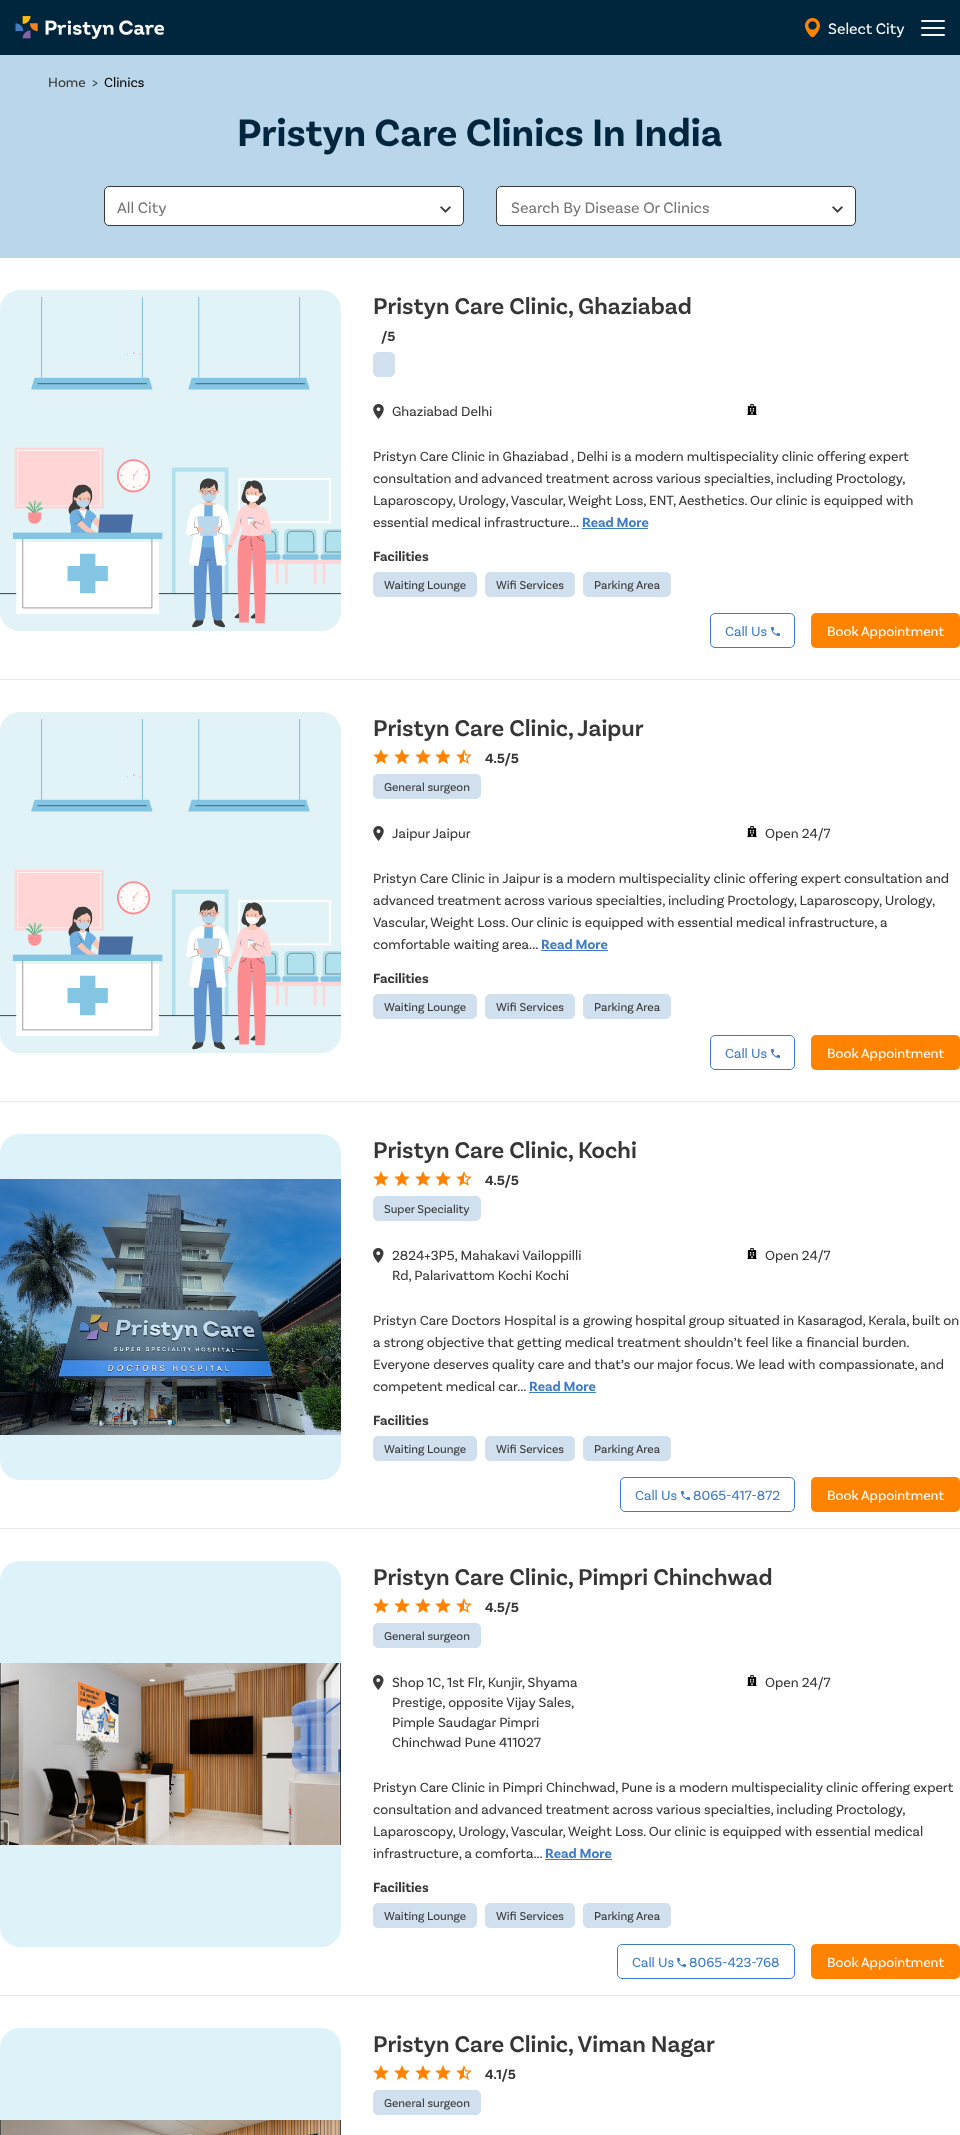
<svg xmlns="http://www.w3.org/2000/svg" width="960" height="2135">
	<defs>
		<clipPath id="clip1"><rect x="117" y="197" width="306" height="19" /></clipPath>
	</defs>
	<rect width="100%" height="100%" fill="#FFFFFF" />
	<rect x="0" y="0" width="960" height="55" fill="#00263E" />
	<image x="15" y="16" width="149" height="23" href="assets/img1.png" />
	<image x="805" y="18" width="15" height="19" href="assets/img2.png" />
	<text x="828" y="34" font-family="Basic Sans" font-size="16" fill="#FFFFFF">Select City</text>
	<rect x="921" y="20" width="24" height="2" rx="1" fill="#F5F5F5" />
	<rect x="921" y="27" width="24" height="2" rx="1" fill="#F5F5F5" />
	<rect x="921" y="34" width="24" height="2" rx="1" fill="#F5F5F5" />
	<rect x="0" y="55" width="960" height="203" fill="#BAD6EA" />
	<g font-family="Basic Sans" font-size="14" fill="#363636">
		<text x="48" y="87">Home</text>
		<text x="92" y="87">&gt;</text>
	</g>
	<text x="104" y="87" font-family="Basic Sans" font-size="14" fill="#000000">Clinics</text>
	<text x="237" y="146" font-family="Basic Sans" font-size="40" font-weight="700" fill="#00263E">Pristyn Care Clinics In India</text>
	<rect x="104.5" y="186.5" width="359" height="39" rx="4.5" fill="#FFFFFF" stroke="#3B3B3B" />
	<g clip-path="url(#clip1)">
		<text x="117" y="213" font-family="Basic Sans" font-size="16" fill="#757575">All City</text>
	</g>
	<image x="440" y="206" width="11" height="7" href="assets/img3.png" />
	<rect x="496.5" y="186.5" width="359" height="39" rx="4.5" fill="#FFFFFF" stroke="#3B3B3B" />
	<text x="511" y="213" font-family="Basic Sans" font-size="16" fill="#757575">Search By Disease Or Clinics</text>
	<image x="832" y="206" width="11" height="7" href="assets/img3.png" />
	<rect x="0" y="679" width="960" height="1" fill="#E8E7E7" />
	<rect x="0" y="290" width="341" height="341" rx="20" fill="#DEF3F9" />
	<image x="0" y="290" width="341" height="341" href="assets/img4.png" />
	<text x="373" y="314" font-family="Basic Sans" font-size="24" font-weight="600" fill="#363636">Pristyn Care Clinic, Ghaziabad</text>
	<text x="381" y="341" font-family="Basic Sans" font-size="14" font-weight="700" fill="#363636">/5</text>
	<rect x="373.5" y="352.5" width="21" height="24" rx="4.5" fill="#D0E0EF" stroke="#D0E0EF" />
	<image x="373" y="404" width="11" height="15" href="assets/img5.png" />
	<text x="392" y="416" font-family="Basic Sans" font-size="14" fill="#363636">Ghaziabad Delhi</text>
	<image x="747" y="404" width="10" height="11" href="assets/img6.png" />
	<g font-family="Basic Sans" font-size="14" fill="#363636">
		<text x="373" y="461">Pristyn Care Clinic in Ghaziabad , Delhi is a modern multispeciality clinic offering expert</text>
		<text x="373" y="483">consultation and advanced treatment across various specialties, including Proctology,</text>
		<text x="373" y="505">Laparoscopy, Urology, Vascular, Weight Loss, ENT, Aesthetics. Our clinic is equipped with</text>
		<text x="373" y="527">essential medical infrastructure...</text>
	</g>
	<text x="582" y="527" font-family="Basic Sans" font-size="14" font-weight="700" fill="#3D7CC9">Read More</text>
	<rect x="582" y="528" width="66" height="1" fill="#3D7CC9" />
	<text x="373" y="561" font-family="Basic Sans" font-size="14" font-weight="700" fill="#363636">Facilities</text>
	<rect x="373.5" y="572.5" width="103" height="24" rx="4.5" fill="#D0E0EF" stroke="#D0E0EF" />
	<text x="384" y="589" font-family="Basic Sans" font-size="12" fill="#363636">Waiting Lounge</text>
	<rect x="485.5" y="572.5" width="89" height="24" rx="4.5" fill="#D0E0EF" stroke="#D0E0EF" />
	<text x="496" y="589" font-family="Basic Sans" font-size="12" fill="#363636">Wifi Services</text>
	<rect x="583.5" y="572.5" width="87" height="24" rx="4.5" fill="#D0E0EF" stroke="#D0E0EF" />
	<text x="594" y="589" font-family="Basic Sans" font-size="12" fill="#363636">Parking Area</text>
	<rect x="710.5" y="613.5" width="84" height="34" rx="4.5" fill="none" stroke="#3D7CC9" />
	<text x="725" y="636" font-family="Basic Sans" font-size="14" fill="#3D7CC9">Call Us</text>
	<image x="771" y="627" width="9" height="9" href="assets/img7.png" />
	<rect x="811" y="613" width="149" height="35" rx="5" fill="#FF8300" />
	<g font-family="Basic Sans" font-size="14" fill="#FFFFFF">
		<text x="827" y="636">Book</text>
		<text x="861" y="636">Appointment</text>
	</g>
	<rect x="0" y="1101" width="960" height="1" fill="#E8E7E7" />
	<rect x="0" y="712" width="341" height="341" rx="20" fill="#DEF3F9" />
	<image x="0" y="712" width="341" height="341" href="assets/img8.png" />
	<text x="373" y="736" font-family="Basic Sans" font-size="24" font-weight="600" fill="#363636">Pristyn Care Clinic, Jaipur</text>
	<image x="373" y="749" width="16" height="15" href="assets/img9.png" />
	<image x="394" y="749" width="16" height="15" href="assets/img9.png" />
	<image x="415" y="749" width="16" height="15" href="assets/img9.png" />
	<image x="435" y="749" width="16" height="15" href="assets/img9.png" />
	<image x="456" y="749" width="16" height="15" href="assets/img10.png" />
	<text x="485" y="763" font-family="Basic Sans" font-size="14" font-weight="700" fill="#363636">4.5/5</text>
	<rect x="373.5" y="774.5" width="107" height="24" rx="4.5" fill="#D0E0EF" stroke="#D0E0EF" />
	<text x="384" y="791" font-family="Basic Sans" font-size="12" fill="#363636">General surgeon</text>
	<image x="373" y="826" width="11" height="15" href="assets/img5.png" />
	<text x="392" y="838" font-family="Basic Sans" font-size="14" fill="#363636">Jaipur Jaipur</text>
	<image x="747" y="826" width="10" height="11" href="assets/img6.png" />
	<g font-family="Basic Sans" font-size="14" fill="#363636">
		<text x="765" y="838">Open 24/7</text>
		<text x="373" y="883">Pristyn Care Clinic in Jaipur is a modern multispeciality clinic offering expert consultation and</text>
		<text x="373" y="905">advanced treatment across various specialties, including Proctology, Laparoscopy, Urology,</text>
		<text x="373" y="927">Vascular, Weight Loss. Our clinic is equipped with essential medical infrastructure, a</text>
		<text x="373" y="949">comfortable waiting area...</text>
	</g>
	<text x="541" y="949" font-family="Basic Sans" font-size="14" font-weight="700" fill="#3D7CC9">Read More</text>
	<rect x="541" y="950" width="67" height="1" fill="#3D7CC9" />
	<text x="373" y="983" font-family="Basic Sans" font-size="14" font-weight="700" fill="#363636">Facilities</text>
	<rect x="373.5" y="994.5" width="103" height="24" rx="4.5" fill="#D0E0EF" stroke="#D0E0EF" />
	<text x="384" y="1011" font-family="Basic Sans" font-size="12" fill="#363636">Waiting Lounge</text>
	<rect x="485.5" y="994.5" width="89" height="24" rx="4.5" fill="#D0E0EF" stroke="#D0E0EF" />
	<text x="496" y="1011" font-family="Basic Sans" font-size="12" fill="#363636">Wifi Services</text>
	<rect x="583.5" y="994.5" width="87" height="24" rx="4.5" fill="#D0E0EF" stroke="#D0E0EF" />
	<text x="594" y="1011" font-family="Basic Sans" font-size="12" fill="#363636">Parking Area</text>
	<rect x="710.5" y="1035.5" width="84" height="34" rx="4.5" fill="none" stroke="#3D7CC9" />
	<text x="725" y="1058" font-family="Basic Sans" font-size="14" fill="#3D7CC9">Call Us</text>
	<image x="771" y="1049" width="9" height="9" href="assets/img7.png" />
	<rect x="811" y="1035" width="149" height="35" rx="5" fill="#FF8300" />
	<g font-family="Basic Sans" font-size="14" fill="#FFFFFF">
		<text x="827" y="1058">Book</text>
		<text x="861" y="1058">Appointment</text>
	</g>
	<rect x="0" y="1528" width="960" height="1" fill="#E8E7E7" />
	<rect x="0" y="1134" width="341" height="346" rx="20" fill="#DEF3F9" />
	<image x="0" y="1179" width="341" height="256" href="assets/img11.png" />
	<text x="373" y="1158" font-family="Basic Sans" font-size="24" font-weight="600" fill="#363636">Pristyn Care Clinic, Kochi</text>
	<image x="373" y="1171" width="16" height="15" href="assets/img9.png" />
	<image x="394" y="1171" width="16" height="15" href="assets/img9.png" />
	<image x="415" y="1171" width="16" height="15" href="assets/img9.png" />
	<image x="435" y="1171" width="16" height="15" href="assets/img9.png" />
	<image x="456" y="1171" width="16" height="15" href="assets/img10.png" />
	<text x="485" y="1185" font-family="Basic Sans" font-size="14" font-weight="700" fill="#363636">4.5/5</text>
	<rect x="373.5" y="1196.5" width="107" height="24" rx="4.5" fill="#D0E0EF" stroke="#D0E0EF" />
	<text x="384" y="1213" font-family="Basic Sans" font-size="12" fill="#363636">Super Speciality</text>
	<image x="373" y="1248" width="11" height="15" href="assets/img12.png" />
	<g font-family="Basic Sans" font-size="14" fill="#363636">
		<text x="392" y="1260">2824+3P5, Mahakavi Vailoppilli</text>
		<text x="392" y="1280">Rd, Palarivattom Kochi Kochi</text>
	</g>
	<image x="747" y="1248" width="10" height="11" href="assets/img6.png" />
	<g font-family="Basic Sans" font-size="14" fill="#363636">
		<text x="765" y="1260">Open 24/7</text>
		<text x="373" y="1325">Pristyn Care Doctors Hospital is a growing hospital group situated in Kasaragod, Kerala, built on</text>
		<text x="373" y="1347">a strong objective that getting medical treatment shouldn’t feel like a financial burden.</text>
		<text x="373" y="1369">Everyone deserves quality care and that’s our major focus. We lead with compassionate, and</text>
		<text x="373" y="1391">competent medical car...</text>
	</g>
	<text x="529" y="1391" font-family="Basic Sans" font-size="14" font-weight="700" fill="#3D7CC9">Read More</text>
	<rect x="529" y="1392" width="67" height="1" fill="#3D7CC9" />
	<text x="373" y="1425" font-family="Basic Sans" font-size="14" font-weight="700" fill="#363636">Facilities</text>
	<rect x="373.5" y="1436.5" width="103" height="24" rx="4.5" fill="#D0E0EF" stroke="#D0E0EF" />
	<text x="384" y="1453" font-family="Basic Sans" font-size="12" fill="#363636">Waiting Lounge</text>
	<rect x="485.5" y="1436.5" width="89" height="24" rx="4.5" fill="#D0E0EF" stroke="#D0E0EF" />
	<text x="496" y="1453" font-family="Basic Sans" font-size="12" fill="#363636">Wifi Services</text>
	<rect x="583.5" y="1436.5" width="87" height="24" rx="4.5" fill="#D0E0EF" stroke="#D0E0EF" />
	<text x="594" y="1453" font-family="Basic Sans" font-size="12" fill="#363636">Parking Area</text>
	<rect x="620.5" y="1477.5" width="174" height="34" rx="4.5" fill="none" stroke="#3D7CC9" />
	<text x="635" y="1500" font-family="Basic Sans" font-size="14" fill="#3D7CC9">Call Us</text>
	<image x="681" y="1491" width="9" height="9" href="assets/img7.png" />
	<text x="693" y="1500" font-family="Basic Sans" font-size="14" fill="#3D7CC9">8065-417-872</text>
	<rect x="811" y="1477" width="149" height="35" rx="5" fill="#FF8300" />
	<g font-family="Basic Sans" font-size="14" fill="#FFFFFF">
		<text x="827" y="1500">Book</text>
		<text x="861" y="1500">Appointment</text>
	</g>
	<rect x="0" y="1995" width="960" height="1" fill="#E8E7E7" />
	<rect x="0" y="1561" width="341" height="386" rx="20" fill="#DEF3F9" />
	<image x="0" y="1663" width="341" height="182" href="assets/img13.png" />
	<text x="373" y="1585" font-family="Basic Sans" font-size="24" font-weight="600" fill="#363636">Pristyn Care Clinic, Pimpri Chinchwad</text>
	<image x="373" y="1598" width="16" height="15" href="assets/img9.png" />
	<image x="394" y="1598" width="16" height="15" href="assets/img9.png" />
	<image x="415" y="1598" width="16" height="15" href="assets/img9.png" />
	<image x="435" y="1598" width="16" height="15" href="assets/img9.png" />
	<image x="456" y="1598" width="16" height="15" href="assets/img10.png" />
	<text x="485" y="1612" font-family="Basic Sans" font-size="14" font-weight="700" fill="#363636">4.5/5</text>
	<rect x="373.5" y="1623.5" width="107" height="24" rx="4.5" fill="#D0E0EF" stroke="#D0E0EF" />
	<text x="384" y="1640" font-family="Basic Sans" font-size="12" fill="#363636">General surgeon</text>
	<image x="373" y="1675" width="11" height="15" href="assets/img12.png" />
	<g font-family="Basic Sans" font-size="14" fill="#363636">
		<text x="392" y="1687">Shop 1C, 1st Flr, Kunjir, Shyama</text>
		<text x="392" y="1707">Prestige, opposite Vijay Sales,</text>
		<text x="392" y="1727">Pimple Saudagar Pimpri</text>
		<text x="392" y="1747">Chinchwad Pune 411027</text>
	</g>
	<image x="747" y="1675" width="10" height="11" href="assets/img6.png" />
	<g font-family="Basic Sans" font-size="14" fill="#363636">
		<text x="765" y="1687">Open 24/7</text>
		<text x="373" y="1792">Pristyn Care Clinic in Pimpri Chinchwad, Pune is a modern multispeciality clinic offering expert</text>
		<text x="373" y="1814">consultation and advanced treatment across various specialties, including Proctology,</text>
		<text x="373" y="1836">Laparoscopy, Urology, Vascular, Weight Loss. Our clinic is equipped with essential medical</text>
		<text x="373" y="1858">infrastructure, a comforta...</text>
	</g>
	<text x="545" y="1858" font-family="Basic Sans" font-size="14" font-weight="700" fill="#3D7CC9">Read More</text>
	<rect x="545" y="1859" width="67" height="1" fill="#3D7CC9" />
	<text x="373" y="1892" font-family="Basic Sans" font-size="14" font-weight="700" fill="#363636">Facilities</text>
	<rect x="373.5" y="1903.5" width="103" height="24" rx="4.5" fill="#D0E0EF" stroke="#D0E0EF" />
	<text x="384" y="1920" font-family="Basic Sans" font-size="12" fill="#363636">Waiting Lounge</text>
	<rect x="485.5" y="1903.5" width="89" height="24" rx="4.5" fill="#D0E0EF" stroke="#D0E0EF" />
	<text x="496" y="1920" font-family="Basic Sans" font-size="12" fill="#363636">Wifi Services</text>
	<rect x="583.5" y="1903.5" width="87" height="24" rx="4.5" fill="#D0E0EF" stroke="#D0E0EF" />
	<text x="594" y="1920" font-family="Basic Sans" font-size="12" fill="#363636">Parking Area</text>
	<rect x="617.5" y="1944.5" width="177" height="34" rx="4.5" fill="none" stroke="#3D7CC9" />
	<text x="632" y="1967" font-family="Basic Sans" font-size="14" fill="#3D7CC9">Call Us</text>
	<image x="677" y="1958" width="9" height="9" href="assets/img7.png" />
	<text x="689" y="1967" font-family="Basic Sans" font-size="14" fill="#3D7CC9">8065-423-768</text>
	<rect x="811" y="1944" width="149" height="35" rx="5" fill="#FF8300" />
	<g font-family="Basic Sans" font-size="14" fill="#FFFFFF">
		<text x="827" y="1967">Book</text>
		<text x="861" y="1967">Appointment</text>
	</g>
	<rect x="0" y="2028" width="341" height="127" rx="20" fill="#DEF3F9" />
	<image x="0" y="2120" width="341" height="15" href="assets/img14.png" />
	<text x="373" y="2052" font-family="Basic Sans" font-size="24" font-weight="600" fill="#363636">Pristyn Care Clinic, Viman Nagar</text>
	<image x="373" y="2065" width="16" height="15" href="assets/img9.png" />
	<image x="394" y="2065" width="16" height="15" href="assets/img9.png" />
	<image x="415" y="2065" width="16" height="15" href="assets/img9.png" />
	<image x="435" y="2065" width="16" height="15" href="assets/img9.png" />
	<image x="456" y="2065" width="16" height="15" href="assets/img10.png" />
	<text x="485" y="2079" font-family="Basic Sans" font-size="14" font-weight="700" fill="#363636">4.1/5</text>
	<rect x="373.5" y="2090.5" width="107" height="24" rx="4.5" fill="#D0E0EF" stroke="#D0E0EF" />
	<text x="384" y="2107" font-family="Basic Sans" font-size="12" fill="#363636">General surgeon</text>
</svg>
